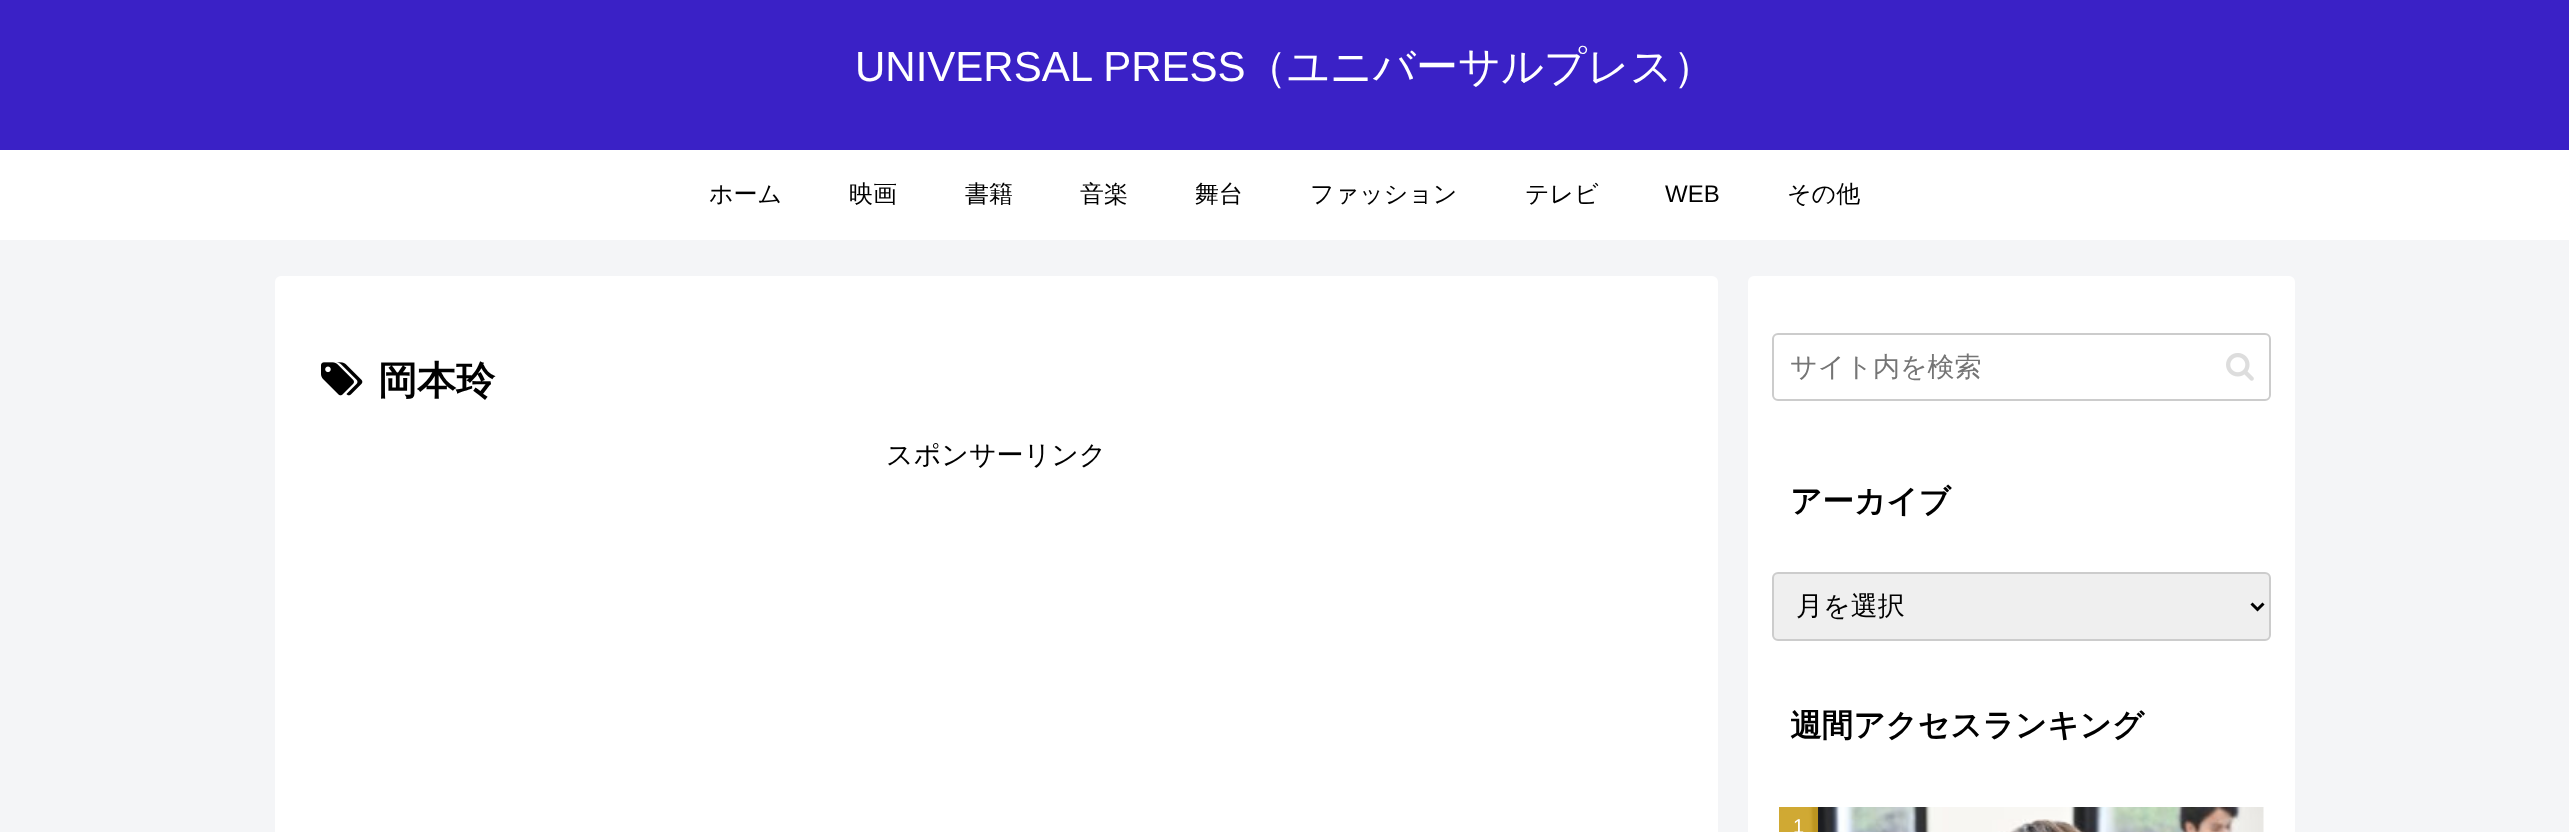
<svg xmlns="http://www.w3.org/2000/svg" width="2569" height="832">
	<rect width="100%" height="100%" fill="#F4F5F7" />
	<rect x="0" y="150" width="2569" height="90" fill="#FFFFFF" />
	<rect x="0" y="0" width="2569" height="150" fill="#3A21C6" />
	<text x="855" y="81" font-family="Liberation Sans" font-size="42" fill="#FFFFFF">UNIVERSAL PRESS</text>
	<text x="1245" y="81" font-family="WenQuanYi Zen Hei" font-size="42" font-weight="500" fill="#FFFFFF">（ユニバーサルプレス）</text>
	<g font-family="WenQuanYi Zen Hei" font-size="24" font-weight="500" fill="#000000">
		<text x="709" y="202">ホーム</text>
		<text x="849" y="202">映画</text>
		<text x="965" y="202">書籍</text>
		<text x="1080" y="202">音楽</text>
		<text x="1195" y="202">舞台</text>
		<text x="1310" y="202">ファッション</text>
		<text x="1525" y="202">テレビ</text>
	</g>
	<text x="1665" y="202" font-family="Liberation Sans" font-size="24" fill="#000000">WEB</text>
	<text x="1787" y="202" font-family="WenQuanYi Zen Hei" font-size="24" font-weight="500" fill="#000000">その他</text>
	<rect x="275" y="276" width="1443" height="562" rx="6" fill="#FFFFFF" />
	<image x="321" y="362" width="42" height="34" href="assets/img1.png" />
	<text x="378" y="394" font-family="WenQuanYi Zen Hei" font-size="39" font-weight="700" fill="#000000">岡本玲</text>
	<text x="886" y="464" font-family="WenQuanYi Zen Hei" font-size="27" font-weight="500" fill="#000000">スポンサーリンク</text>
	<rect x="1748" y="276" width="547" height="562" rx="6" fill="#FFFFFF" />
	<rect x="1773" y="334" width="497" height="66" rx="5" fill="none" stroke="#CCCCCC" stroke-width="2" />
	<text x="1790" y="376" font-family="WenQuanYi Zen Hei" font-size="27" font-weight="500" fill="#757575">サイト内を検索</text>
	<image x="2226" y="353" width="28" height="28" href="assets/img2.png" />
	<text x="1790" y="512" font-family="WenQuanYi Zen Hei" font-size="31.6" font-weight="700" fill="#000000">アーカイブ</text>
	<rect x="1773" y="573" width="497" height="67" rx="5" fill="#EFEFEF" stroke="#CCCCCC" stroke-width="2" />
	<path d="M2251.5 603.5L2257.5 609.5L2263.5 603.5" fill="none" stroke="#000000" stroke-width="3" />
	<text x="1796" y="615" font-family="WenQuanYi Zen Hei" font-size="27" font-weight="500" fill="#000000">月を選択</text>
	<text x="1790" y="736" font-family="WenQuanYi Zen Hei" font-size="31.6" font-weight="700" fill="#000000">週間アクセスランキング</text>
	<image x="1779" y="807" width="485" height="25" href="assets/img3.png" />
	<rect x="1779" y="807" width="39" height="25" fill="#CCA11F" fill-opacity="0.9" />
	<text x="1793" y="833" font-family="Liberation Sans" font-size="20" fill="#FFFFFF">1</text>
</svg>
